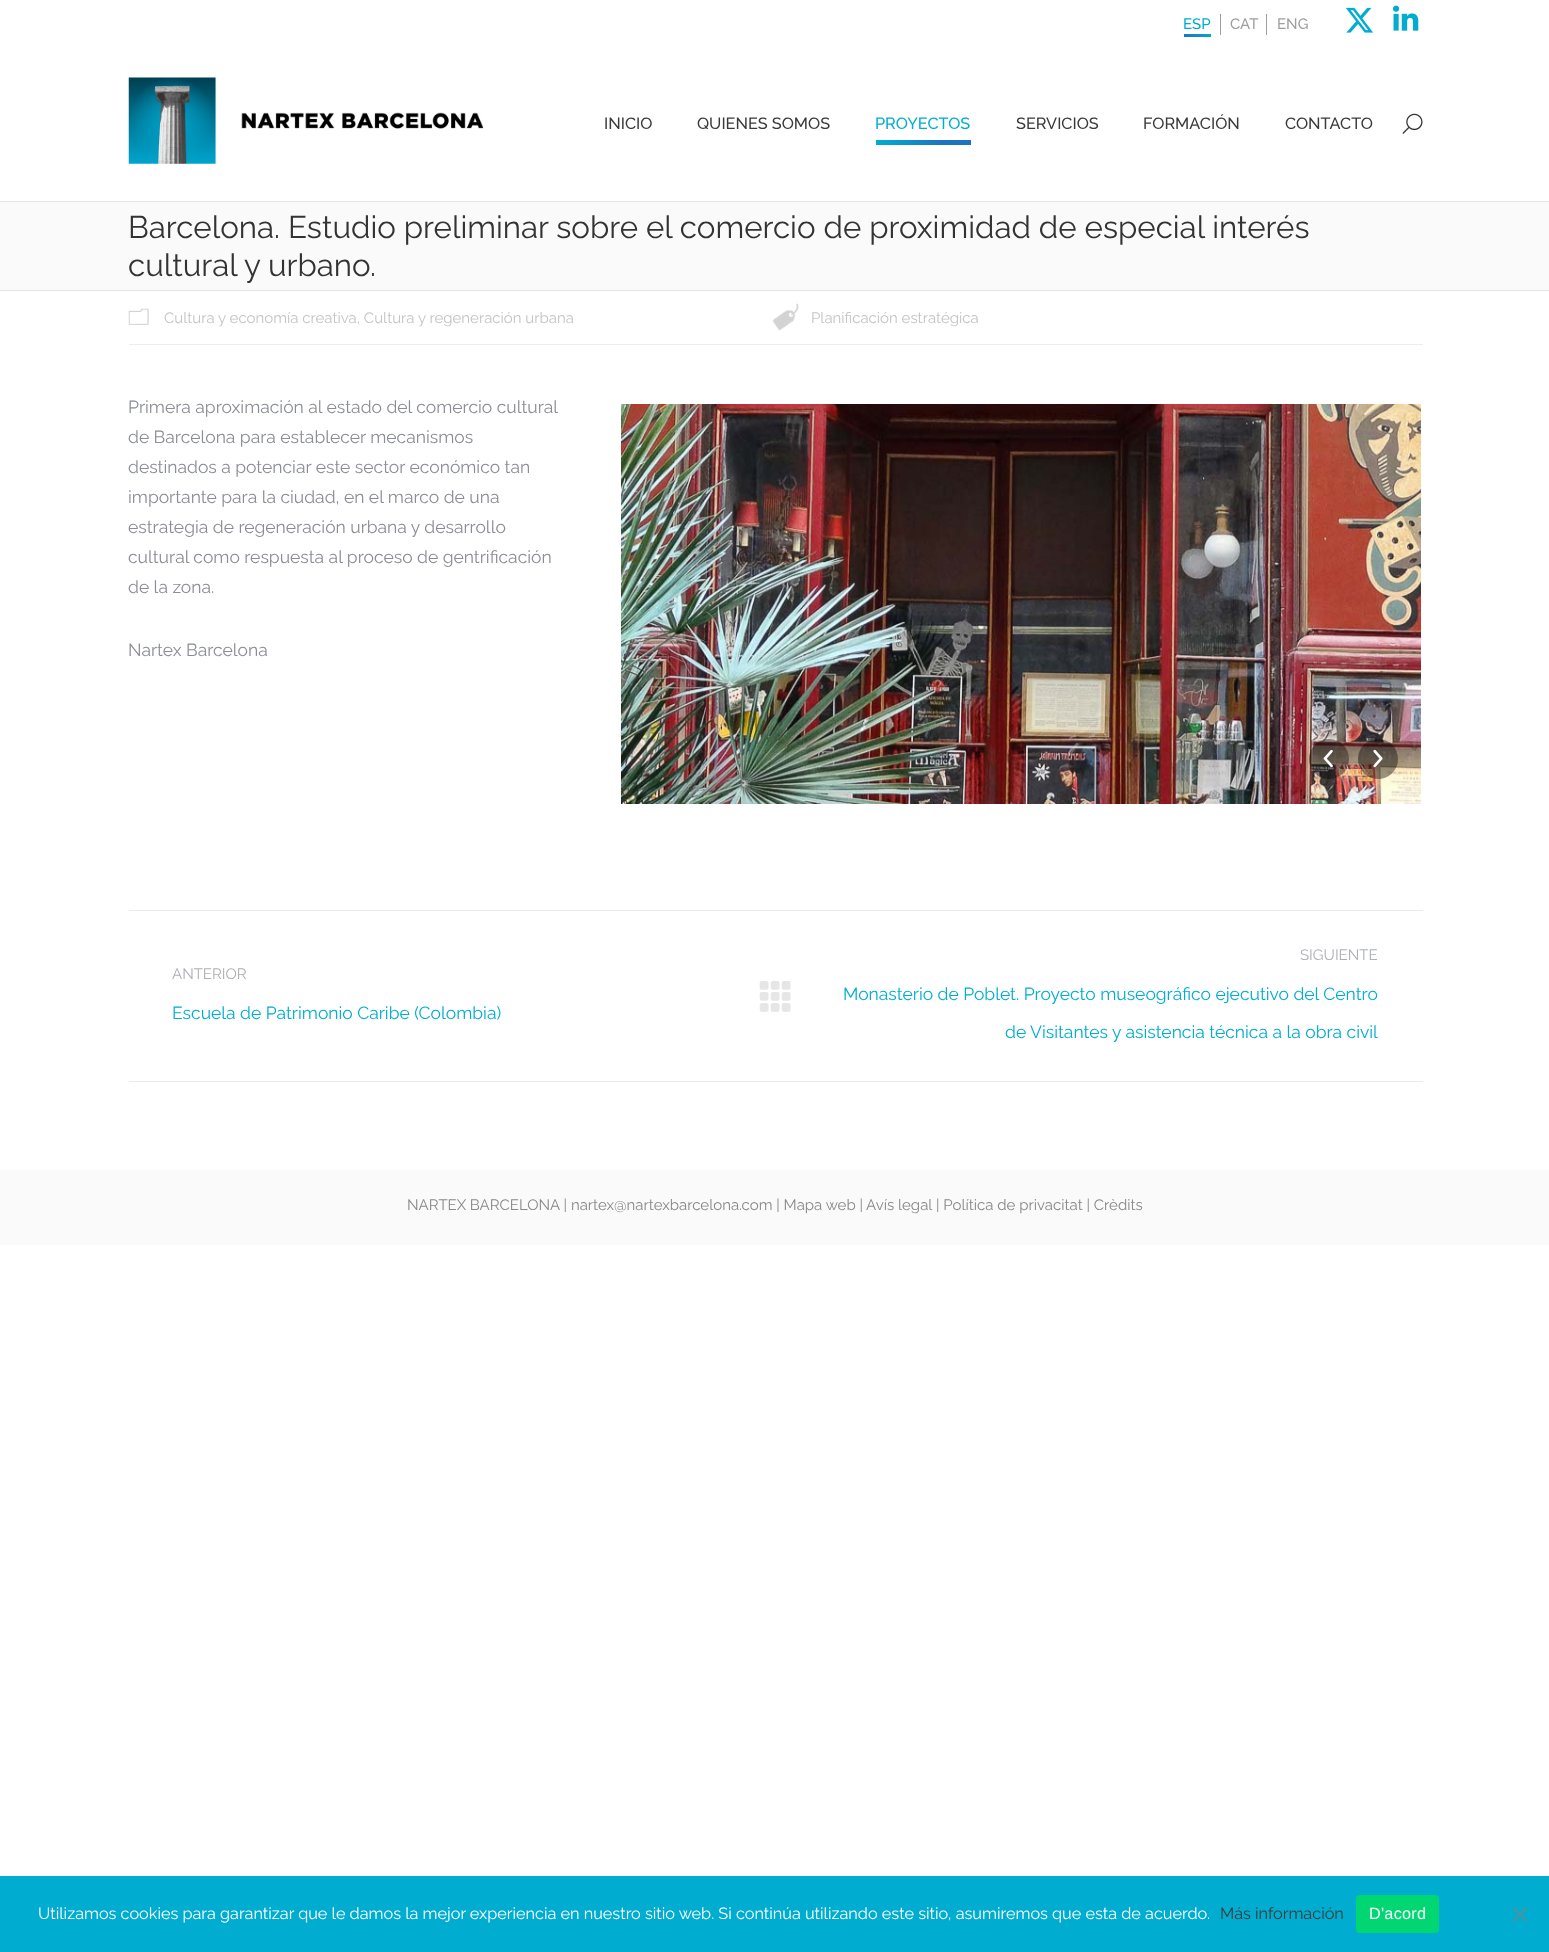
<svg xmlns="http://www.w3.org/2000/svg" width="1549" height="1952">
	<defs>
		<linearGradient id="g1" gradientUnits="userSpaceOnUse" x1="1194" y1="42" x2="1201" y2="28"><stop offset="0" stop-color="#1E73BE" /><stop offset="1" stop-color="#00ADD0" /></linearGradient>
		<linearGradient id="g2" gradientUnits="userSpaceOnUse" x1="971" y1="143" x2="876" y2="143"><stop offset="0.3" stop-color="#1E73BE" /><stop offset="1" stop-color="#00ADD0" /></linearGradient>
	</defs>
	<rect width="100%" height="100%" fill="#FFFFFF" />
	<text x="1183" y="29" font-family="Raleway" font-size="15" font-weight="500" fill="#00ADD0">ESP</text>
	<rect x="1184" y="34" width="27" height="3" fill="url(#g1)" />
	<rect x="1220" y="14" width="1" height="21" fill="#9E9E9E" />
	<text x="1230" y="29" font-family="Raleway" font-size="15" font-weight="500" fill="#9E9E9E">CAT</text>
	<rect x="1266" y="14" width="1" height="21" fill="#9E9E9E" />
	<text x="1277" y="29" font-family="Raleway" font-size="15" font-weight="500" fill="#9E9E9E">ENG</text>
	<image x="1345" y="7" width="28" height="26" href="assets/img1.png" />
	<image x="1393" y="5" width="26" height="26" href="assets/img2.png" />
	<image x="128" y="77" width="356" height="87" href="assets/img3.png" />
	<g font-family="Raleway" font-size="16.25" font-weight="500" fill="#3A3A3A">
		<text x="604" y="129">INICIO</text>
		<text x="697" y="129">QUIENES SOMOS</text>
	</g>
	<text x="875" y="129" font-family="Raleway" font-size="16.25" font-weight="500" fill="#00ADD0">PROYECTOS</text>
	<rect x="876" y="140" width="95" height="5" fill="url(#g2)" />
	<g font-family="Raleway" font-size="16.25" font-weight="500" fill="#3A3A3A">
		<text x="1016" y="129">SERVICIOS</text>
		<text x="1143" y="129">FORMACIÓN</text>
		<text x="1285" y="129">CONTACTO</text>
	</g>
	<image x="1402" y="113" width="21" height="21" href="assets/img4.png" />
	<rect x="0" y="202" width="1549" height="88" fill="#FAFAFA" />
	<rect x="0" y="201" width="1549" height="1" fill="#E4E4E4" />
	<rect x="0" y="290" width="1549" height="1" fill="#E4E4E4" />
	<g font-family="Raleway" font-size="31.25" fill="#333333">
		<text x="128" y="238">Barcelona. Estudio preliminar sobre el comercio de proximidad de especial interés</text>
		<text x="128" y="276">cultural y urbano.</text>
	</g>
	<rect x="129" y="344" width="1294" height="1" fill="#EDEDED" />
	<image x="128" y="308" width="21" height="17" href="assets/img5.png" />
	<text x="164" y="323" font-family="Raleway" font-size="15" fill="#C4C4C4">Cultura y economía creativa, Cultura y regeneración urbana</text>
	<image x="772" y="303" width="27" height="27" href="assets/img6.png" />
	<text x="811" y="323" font-family="Raleway" font-size="15" fill="#C4C4C4">Planificación estratégica</text>
	<g font-family="Raleway" font-size="17.5" fill="#8B8D94">
		<text x="128" y="413">Primera aproximación al estado del comercio cultural</text>
		<text x="128" y="443">de Barcelona para establecer mecanismos</text>
		<text x="128" y="473">destinados a potenciar este sector económico tan</text>
		<text x="128" y="503">importante para la ciudad, en el marco de una</text>
		<text x="128" y="533">estrategia de regeneración urbana y desarrollo</text>
		<text x="128" y="563">cultural como respuesta al proceso de gentrificación</text>
		<text x="128" y="593">de la zona.</text>
		<text x="128" y="656">Nartex Barcelona</text>
	</g>
	<image x="621" y="404" width="800" height="400" href="assets/img7.png" />
	<circle cx="1329" cy="759" r="20" fill="#000000" fill-opacity="0.4" />
	<image x="1323" y="749" width="10" height="19" href="assets/img8.png" />
	<circle cx="1378" cy="759" r="20" fill="#000000" fill-opacity="0.4" />
	<image x="1373" y="749" width="10" height="19" href="assets/img9.png" />
	<rect x="129" y="910" width="1294" height="1" fill="#EBEBEB" />
	<rect x="129" y="1081" width="1294" height="1" fill="#EBEBEB" />
	<text x="172" y="979" font-family="Raleway" font-size="15" fill="#ADAFB3">ANTERIOR</text>
	<text x="172" y="1019" font-family="Raleway" font-size="17.5" fill="#00ADD0">Escuela de Patrimonio Caribe (Colombia)</text>
	<image x="759" y="981" width="32" height="31" href="assets/img10.png" />
	<text x="1300" y="960" font-family="Raleway" font-size="15" fill="#ADAFB3">SIGUIENTE</text>
	<g font-family="Raleway" font-size="17.5" fill="#00ADD0">
		<text x="843" y="1000">Monasterio de Poblet. Proyecto museográfico ejecutivo del Centro</text>
		<text x="1005" y="1038">de Visitantes y asistencia técnica a la obra civil</text>
	</g>
	<rect x="0" y="1170" width="1549" height="75" fill="#FAFAFA" />
	<g font-family="Raleway" font-size="15" fill="#888888">
		<text x="407" y="1210">NARTEX BARCELONA | nartex@nartexbarcelona.com | Mapa web |</text>
		<text x="866" y="1210">Avís legal</text>
		<text x="936" y="1210">| Política de privacitat | Crèdits</text>
	</g>
	<rect x="0" y="1876" width="1549" height="76" fill="#00ADD0" />
	<text x="38" y="1919" font-family="Raleway" font-size="16.25" fill="#FFFFFF">Utilizamos cookies para garantizar que le damos la mejor experiencia en nuestro sitio web. Si continúa utilizando este sitio, asumiremos que esta de acuerdo.</text>
	<text x="1220" y="1919" font-family="Raleway" font-size="16.25" fill="#3A3A3A">Más información</text>
	<rect x="1356" y="1895" width="83" height="38" rx="4" fill="#00D672" />
	<text x="1369" y="1919" font-family="Liberation Sans" font-size="16.25" letter-spacing="0.25" fill="#FFFFFF">D'acord</text>
	<path d="M1525.5 1907L1527.5 1909L1514.5 1922L1512.5 1920.5Z" fill="#4097A8" />
	<path d="M1512.5 1909L1514.5 1907L1527.5 1920.5L1525.5 1922Z" fill="#4097A8" />
</svg>
